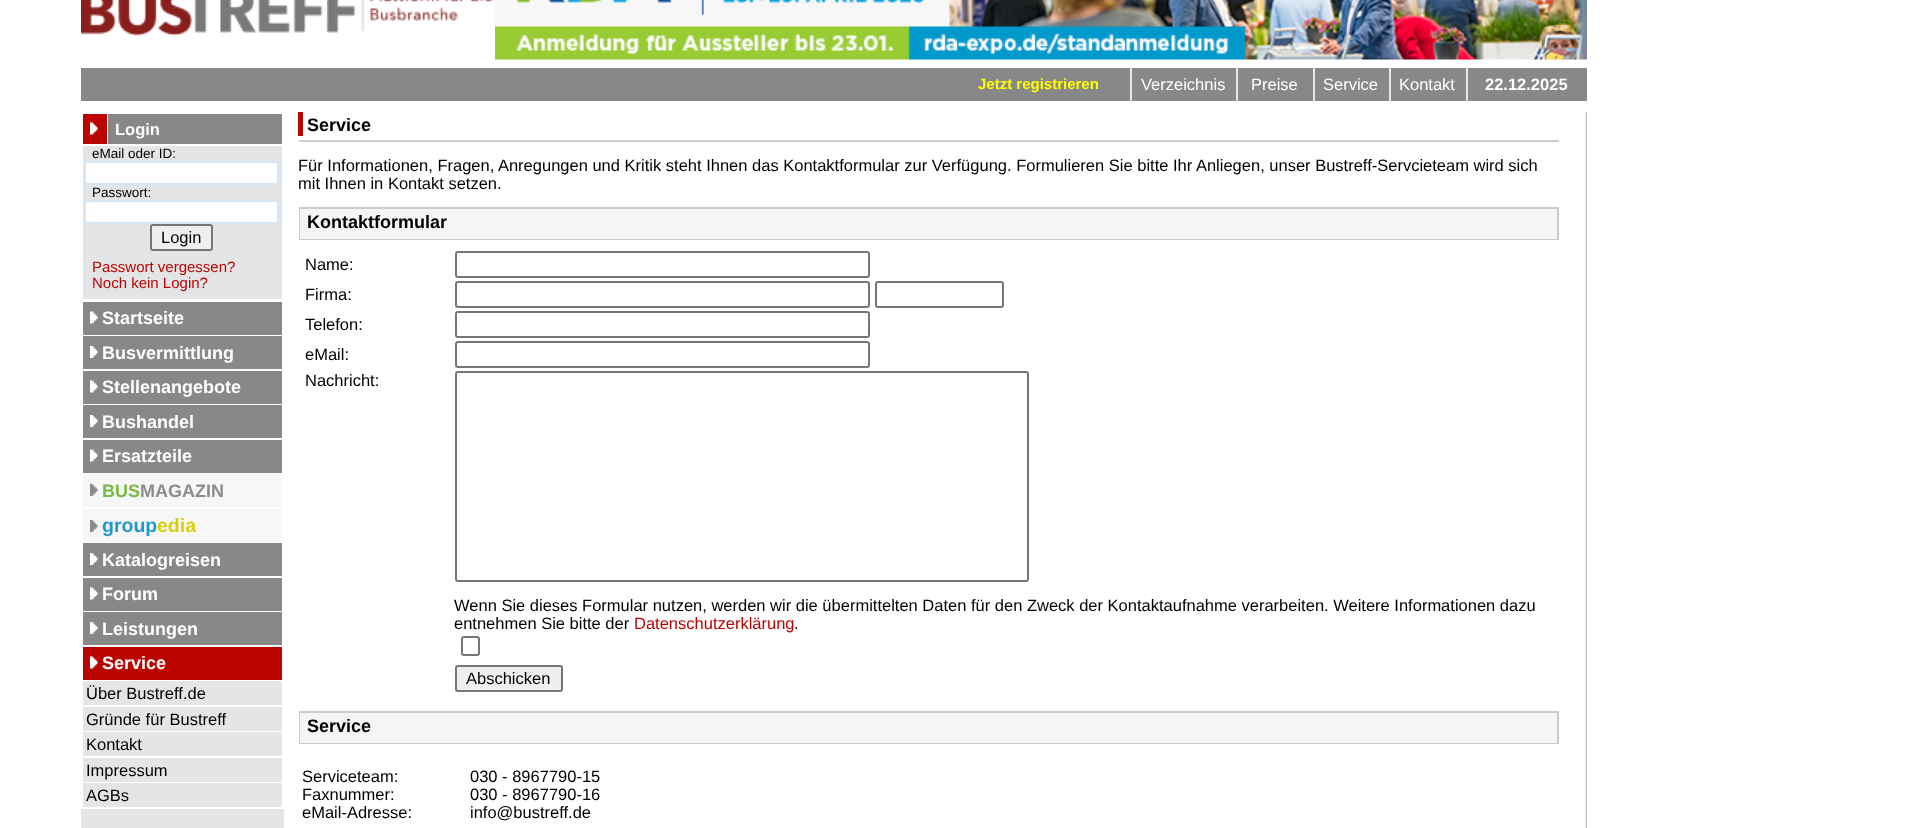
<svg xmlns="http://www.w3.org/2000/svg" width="1913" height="828">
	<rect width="100%" height="100%" fill="#FFFFFF" />
	<image x="81" y="0" width="412" height="36" href="assets/img1.png" />
	<image x="495" y="0" width="1092" height="60" href="assets/img2.png" />
	<rect x="81" y="68" width="1506" height="33" fill="#888888" />
	<text x="978" y="89" font-family="Liberation Sans" font-size="15" font-weight="700" fill="#FFFF00">Jetzt registrieren</text>
	<rect x="1130" y="68" width="2" height="33" fill="#E4E5E6" />
	<text x="1141" y="90" font-family="Liberation Sans" font-size="16.5" fill="#FFFFFF">Verzeichnis</text>
	<rect x="1236" y="68" width="2" height="33" fill="#E4E5E6" />
	<text x="1251" y="90" font-family="Liberation Sans" font-size="16.5" fill="#FFFFFF">Preise</text>
	<rect x="1313" y="68" width="2" height="33" fill="#E4E5E6" />
	<text x="1323" y="90" font-family="Liberation Sans" font-size="16.5" fill="#FFFFFF">Service</text>
	<rect x="1389" y="68" width="2" height="33" fill="#E4E5E6" />
	<text x="1399" y="90" font-family="Liberation Sans" font-size="16.5" fill="#FFFFFF">Kontakt</text>
	<rect x="1466" y="68" width="2" height="33" fill="#E4E5E6" />
	<text x="1485" y="90" font-family="Liberation Sans" font-size="16.5" font-weight="700" fill="#FFFFFF">22.12.2025</text>
	<rect x="81" y="809" width="203" height="19" fill="#E4E5E6" />
	<rect x="83" y="114" width="24" height="30" fill="#BB0400" />
	<image x="90" y="122" width="8" height="13" href="assets/img3.png" />
	<rect x="108" y="114" width="174" height="30" fill="#888888" />
	<text x="115" y="135" font-family="Liberation Sans" font-size="16.5" font-weight="700" fill="#FFFFFF">Login</text>
	<rect x="83" y="146" width="199" height="153" fill="#E4E5E6" />
	<text x="92" y="158" font-family="Liberation Sans" font-size="13.5" fill="#000000">eMail oder ID:</text>
	<rect x="85" y="162" width="193" height="22" fill="#FFFFFF" stroke="#D4E6F5" stroke-width="2" />
	<text x="92" y="197" font-family="Liberation Sans" font-size="13.5" fill="#000000">Passwort:</text>
	<rect x="85" y="201" width="193" height="22" fill="#FFFFFF" stroke="#D4E6F5" stroke-width="2" />
	<rect x="151" y="225" width="61" height="25" rx="2" fill="#EFEFEF" stroke="#767676" stroke-width="2" />
	<text x="161" y="243" font-family="Liberation Sans" font-size="16.5" fill="#000000">Login</text>
	<g font-family="Liberation Sans" font-size="15" fill="#BB0400">
		<text x="92" y="272">Passwort vergessen?</text>
		<text x="92" y="288">Noch kein Login?</text>
	</g>
	<rect x="83" y="302" width="199" height="33" fill="#888888" />
	<image x="90" y="311" width="8" height="13" href="assets/img4.png" />
	<text x="102" y="324" font-family="Liberation Sans" font-size="18" font-weight="700" fill="#FFFFFF">Startseite</text>
	<rect x="83" y="336" width="199" height="33" fill="#888888" />
	<image x="90" y="346" width="8" height="12" href="assets/img5.png" />
	<text x="102" y="359" font-family="Liberation Sans" font-size="18" font-weight="700" fill="#FFFFFF">Busvermittlung</text>
	<rect x="83" y="371" width="199" height="33" fill="#888888" />
	<image x="90" y="380" width="8" height="13" href="assets/img4.png" />
	<text x="102" y="393" font-family="Liberation Sans" font-size="18" font-weight="700" fill="#FFFFFF">Stellenangebote</text>
	<rect x="83" y="405" width="199" height="33" fill="#888888" />
	<image x="90" y="415" width="8" height="12" href="assets/img5.png" />
	<text x="102" y="428" font-family="Liberation Sans" font-size="18" font-weight="700" fill="#FFFFFF">Bushandel</text>
	<rect x="83" y="440" width="199" height="33" fill="#888888" />
	<image x="90" y="449" width="8" height="13" href="assets/img4.png" />
	<text x="102" y="462" font-family="Liberation Sans" font-size="18" font-weight="700" fill="#FFFFFF">Ersatzteile</text>
	<rect x="83" y="474" width="199" height="33" fill="#F7F7F7" />
	<image x="90" y="484" width="8" height="12" href="assets/img6.png" />
	<text x="102" y="497" font-family="Liberation Sans" font-size="18" font-weight="700" fill="#78BB41">BUS</text>
	<text x="140" y="497" font-family="Liberation Sans" font-size="18" font-weight="700" fill="#8C8B90">MAGAZIN</text>
	<rect x="83" y="509" width="199" height="33" fill="#F7F7F7" />
	<image x="90" y="520" width="8" height="12" href="assets/img6.png" />
	<text x="102" y="532" font-family="Liberation Sans" font-size="19.5" font-weight="700" fill="#2097CE">group</text>
	<text x="157" y="532" font-family="Liberation Sans" font-size="19.5" font-weight="700" fill="#D5D10E">edia</text>
	<rect x="83" y="543" width="199" height="33" fill="#888888" />
	<image x="90" y="553" width="8" height="12" href="assets/img5.png" />
	<text x="102" y="566" font-family="Liberation Sans" font-size="18" font-weight="700" fill="#FFFFFF">Katalogreisen</text>
	<rect x="83" y="578" width="199" height="33" fill="#888888" />
	<image x="90" y="587" width="8" height="13" href="assets/img4.png" />
	<text x="102" y="600" font-family="Liberation Sans" font-size="18" font-weight="700" fill="#FFFFFF">Forum</text>
	<rect x="83" y="612" width="199" height="33" fill="#888888" />
	<image x="90" y="622" width="8" height="12" href="assets/img5.png" />
	<text x="102" y="635" font-family="Liberation Sans" font-size="18" font-weight="700" fill="#FFFFFF">Leistungen</text>
	<rect x="83" y="647" width="199" height="33" fill="#BB0400" />
	<image x="90" y="656" width="8" height="13" href="assets/img3.png" />
	<text x="102" y="669" font-family="Liberation Sans" font-size="18" font-weight="700" fill="#FFFFFF">Service</text>
	<rect x="83" y="681" width="199" height="24" fill="#E4E5E6" />
	<text x="86" y="699" font-family="Liberation Sans" font-size="16.5" fill="#000000">Über Bustreff.de</text>
	<rect x="83" y="707" width="199" height="24" fill="#E4E5E6" />
	<text x="86" y="725" font-family="Liberation Sans" font-size="16.5" fill="#000000">Gründe für Bustreff</text>
	<rect x="83" y="732" width="199" height="24" fill="#E4E5E6" />
	<text x="86" y="750" font-family="Liberation Sans" font-size="16.5" fill="#000000">Kontakt</text>
	<rect x="83" y="758" width="199" height="24" fill="#E4E5E6" />
	<text x="86" y="776" font-family="Liberation Sans" font-size="16.5" fill="#000000">Impressum</text>
	<rect x="83" y="783" width="199" height="24" fill="#E4E5E6" />
	<text x="86" y="801" font-family="Liberation Sans" font-size="16.5" fill="#000000">AGBs</text>
	<rect x="298" y="112" width="5" height="24" fill="#BB0400" />
	<text x="307" y="131" font-family="Liberation Sans" font-size="18" font-weight="700" fill="#000000">Service</text>
	<rect x="299" y="140" width="1260" height="2" fill="#CCCCCC" />
	<g font-family="Liberation Sans" font-size="16.5" fill="#000000">
		<text x="298" y="171">Für Informationen, Fragen, Anregungen und Kritik steht Ihnen das Kontaktformular zur Verfügung. Formulieren Sie bitte Ihr Anliegen, unser Bustreff-Servcieteam wird sich</text>
		<text x="298" y="189">mit Ihnen in Kontakt setzen.</text>
	</g>
	<rect x="299" y="207" width="1260" height="33" fill="#CCCCCC" />
	<rect x="300" y="209" width="1257" height="30" fill="#F5F5F5" />
	<text x="307" y="228" font-family="Liberation Sans" font-size="18" font-weight="700" fill="#000000">Kontaktformular</text>
	<text x="305" y="270" font-family="Liberation Sans" font-size="16.5" fill="#000000">Name:</text>
	<rect x="456" y="252" width="413" height="25" rx="2" fill="none" stroke="#767676" stroke-width="2" />
	<text x="305" y="300" font-family="Liberation Sans" font-size="16.5" fill="#000000">Firma:</text>
	<rect x="456" y="282" width="413" height="25" rx="2" fill="none" stroke="#767676" stroke-width="2" />
	<rect x="876" y="282" width="127" height="25" rx="2" fill="none" stroke="#767676" stroke-width="2" />
	<text x="305" y="330" font-family="Liberation Sans" font-size="16.5" fill="#000000">Telefon:</text>
	<rect x="456" y="312" width="413" height="25" rx="2" fill="none" stroke="#767676" stroke-width="2" />
	<text x="305" y="360" font-family="Liberation Sans" font-size="16.5" fill="#000000">eMail:</text>
	<rect x="456" y="342" width="413" height="25" rx="2" fill="none" stroke="#767676" stroke-width="2" />
	<text x="305" y="386" font-family="Liberation Sans" font-size="16.5" fill="#000000">Nachricht:</text>
	<rect x="456" y="372" width="572" height="209" rx="2" fill="none" stroke="#767676" stroke-width="2" />
	<g font-family="Liberation Sans" font-size="16.5" fill="#000000">
		<text x="454" y="611">Wenn Sie dieses Formular nutzen, werden wir die übermittelten Daten für den Zweck der Kontaktaufnahme verarbeiten. Weitere Informationen dazu</text>
		<text x="454" y="629">entnehmen Sie bitte der</text>
	</g>
	<text x="634" y="629" font-family="Liberation Sans" font-size="16.5" fill="#BB0400">Datenschutzerklärung</text>
	<text x="794" y="629" font-family="Liberation Sans" font-size="16.5" fill="#000000">.</text>
	<rect x="462" y="637" width="17" height="18" rx="2" fill="none" stroke="#767676" stroke-width="2" />
	<rect x="456" y="666" width="106" height="25" rx="2" fill="#EFEFEF" stroke="#767676" stroke-width="2" />
	<text x="466" y="684" font-family="Liberation Sans" font-size="16.5" fill="#000000">Abschicken</text>
	<rect x="299" y="711" width="1260" height="33" fill="#CCCCCC" />
	<rect x="300" y="713" width="1257" height="30" fill="#F5F5F5" />
	<text x="307" y="732" font-family="Liberation Sans" font-size="18" font-weight="700" fill="#000000">Service</text>
	<g font-family="Liberation Sans" font-size="16.5" fill="#000000">
		<text x="302" y="782">Serviceteam:</text>
		<text x="302" y="800">Faxnummer:</text>
		<text x="302" y="818">eMail-Adresse:</text>
		<text x="470" y="782">030 - 8967790-15</text>
		<text x="470" y="800">030 - 8967790-16</text>
		<text x="470" y="818">info@bustreff.de</text>
	</g>
	<image x="1585" y="112" width="2" height="716" href="assets/img7.png" />
</svg>
